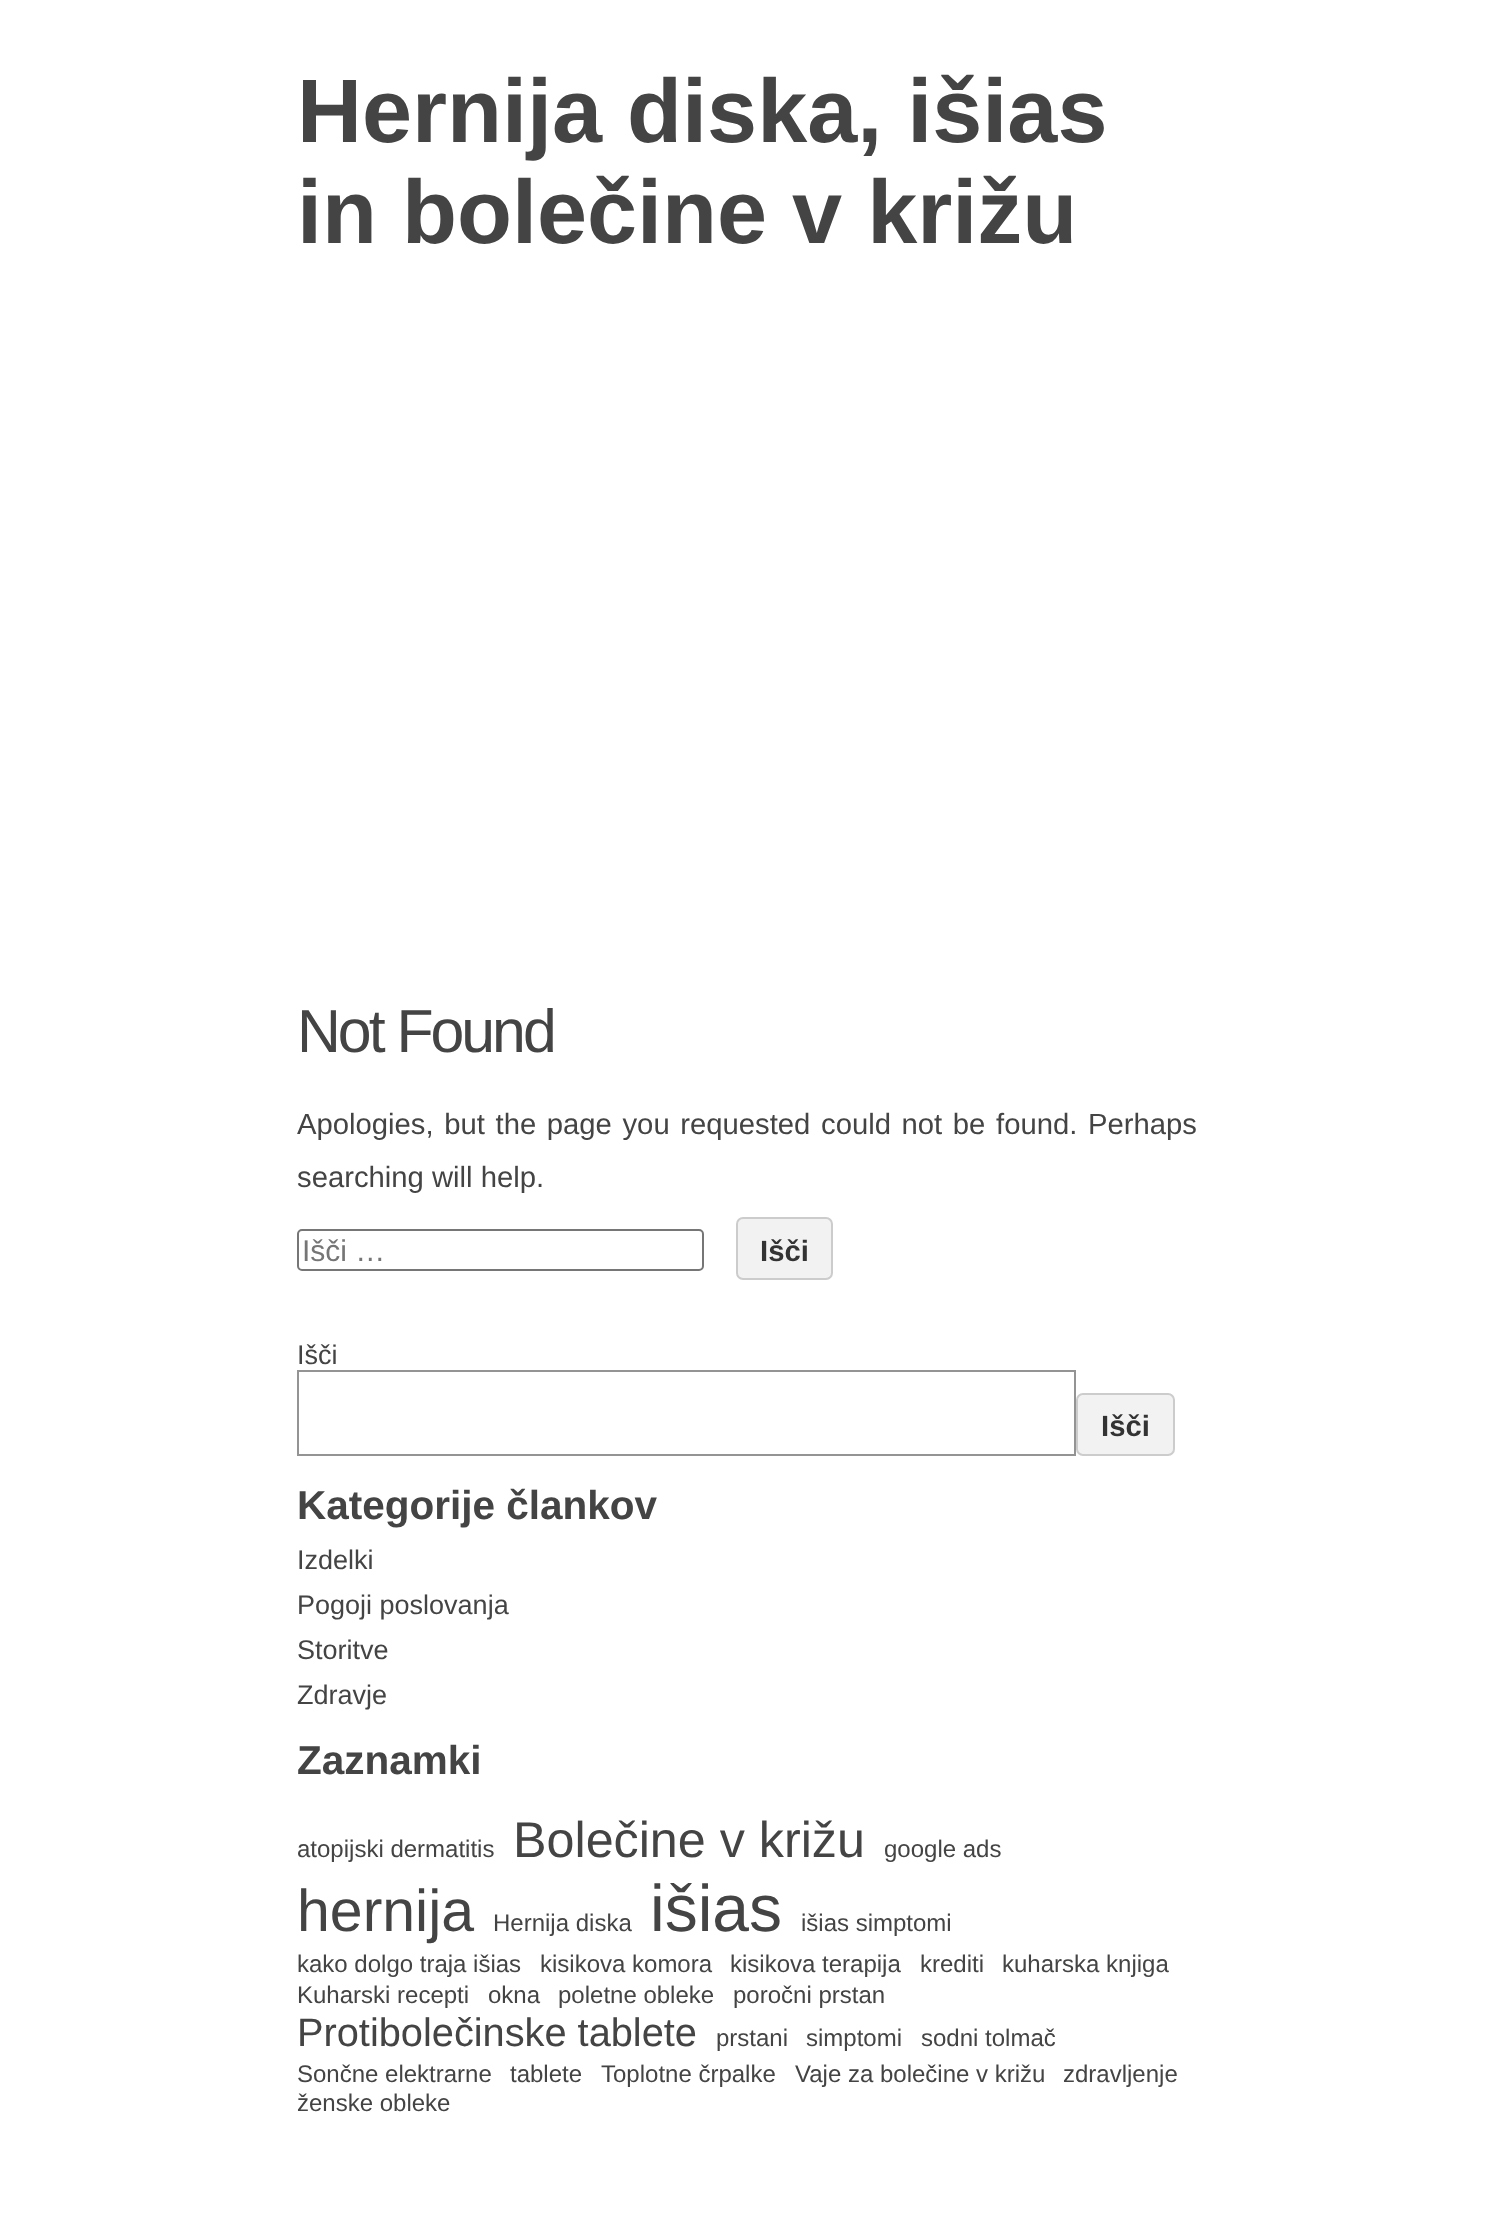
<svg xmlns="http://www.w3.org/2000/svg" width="1492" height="2234">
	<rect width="100%" height="100%" fill="#FFFFFF" />
	<g font-family="Liberation Sans" font-size="90" font-weight="700" fill="#444444">
		<text x="297" y="142">Hernija diska, išias</text>
		<text x="297" y="243">in bolečine v križu</text>
	</g>
	<text x="297" y="1052" font-family="Liberation Sans" font-size="60.75" letter-spacing="-3" fill="#444444">Not Found</text>
	<g font-family="Liberation Sans" font-size="29.25" fill="#444444">
		<text x="297" y="1134" word-spacing="2.5">Apologies, but the page you requested could not be found. Perhaps</text>
		<text x="297" y="1187">searching will help.</text>
	</g>
	<rect x="298" y="1230" width="405" height="40" rx="4" fill="none" stroke="#767676" stroke-width="2" />
	<text x="302" y="1261" font-family="Liberation Sans" font-size="30" fill="#757575">Išči …</text>
	<rect x="737" y="1218" width="95" height="61" rx="6" fill="#F2F2F2" stroke="#CCCCCC" stroke-width="2" />
	<text x="760" y="1261" font-family="Liberation Sans" font-size="29.25" font-weight="700" fill="#333333">Išči</text>
	<text x="297" y="1364" font-family="Liberation Sans" font-size="27" fill="#444444">Išči</text>
	<rect x="298" y="1371" width="777" height="84" fill="none" stroke="#949494" stroke-width="2" />
	<rect x="1077" y="1394" width="97" height="61" rx="6" fill="#F2F2F2" stroke="#CCCCCC" stroke-width="2" />
	<text x="1101" y="1436" font-family="Liberation Sans" font-size="29.25" font-weight="700" fill="#333333">Išči</text>
	<text x="297" y="1519" font-family="Liberation Sans" font-size="40.5" font-weight="700" fill="#444444">Kategorije člankov</text>
	<g font-family="Liberation Sans" font-size="27" fill="#444444">
		<text x="297" y="1569">Izdelki</text>
		<text x="297" y="1614">Pogoji poslovanja</text>
		<text x="297" y="1659">Storitve</text>
		<text x="297" y="1704">Zdravje</text>
	</g>
	<text x="297" y="1774" font-family="Liberation Sans" font-size="40.5" font-weight="700" fill="#444444">Zaznamki</text>
	<text x="297" y="1857" font-family="Liberation Sans" font-size="24" fill="#444444">atopijski dermatitis</text>
	<text x="513" y="1857" font-family="Liberation Sans" font-size="50.25" fill="#444444">Bolečine v križu</text>
	<text x="884" y="1857" font-family="Liberation Sans" font-size="24" fill="#444444">google ads</text>
	<text x="297" y="1931" font-family="Liberation Sans" font-size="59" fill="#444444">hernija</text>
	<text x="493" y="1931" font-family="Liberation Sans" font-size="24" fill="#444444">Hernija diska</text>
	<text x="650" y="1931" font-family="Liberation Sans" font-size="66" fill="#444444">išias</text>
	<g font-family="Liberation Sans" font-size="24" fill="#444444">
		<text x="801" y="1931">išias simptomi</text>
		<text x="297" y="1972">kako dolgo traja išias</text>
		<text x="540" y="1972">kisikova komora</text>
		<text x="730" y="1972">kisikova terapija</text>
		<text x="920" y="1972">krediti</text>
		<text x="1002" y="1972">kuharska knjiga</text>
		<text x="297" y="2003">Kuharski recepti</text>
		<text x="488" y="2003">okna</text>
		<text x="558" y="2003">poletne obleke</text>
		<text x="733" y="2003">poročni prstan</text>
	</g>
	<text x="297" y="2046" font-family="Liberation Sans" font-size="39.75" fill="#444444">Protibolečinske tablete</text>
	<g font-family="Liberation Sans" font-size="24" fill="#444444">
		<text x="716" y="2046">prstani</text>
		<text x="806" y="2046">simptomi</text>
		<text x="921" y="2046">sodni tolmač</text>
		<text x="297" y="2082">Sončne elektrarne</text>
		<text x="510" y="2082">tablete</text>
		<text x="601" y="2082">Toplotne črpalke</text>
		<text x="795" y="2082">Vaje za bolečine v križu</text>
		<text x="1063" y="2082">zdravljenje</text>
		<text x="297" y="2111">ženske obleke</text>
	</g>
</svg>
